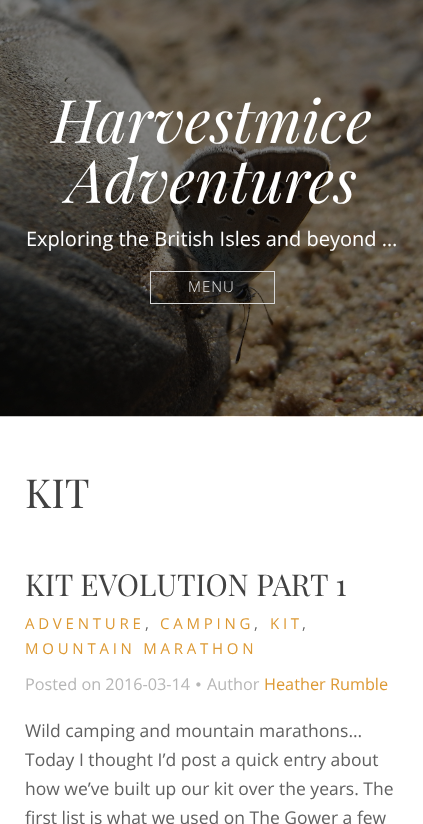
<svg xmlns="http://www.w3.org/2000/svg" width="423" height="824">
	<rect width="100%" height="100%" fill="#FFFFFF" />
	<image x="0" y="0" width="423" height="417" href="assets/img1.png" />
	<g font-family="Playfair Display" font-size="60" font-style="italic" fill="#FFFFFF">
		<text x="52" y="143">Harvestmice</text>
		<text x="67" y="203">Adventures</text>
	</g>
	<text x="26" y="246" font-family="Open Sans" font-size="20" fill="#FFFFFF">Exploring the British Isles and beyond …</text>
	<rect x="150.5" y="271.5" width="124" height="32" fill="none" stroke="#D7D7D7" />
	<text x="188" y="292" font-family="Open Sans" font-size="15" font-weight="300" letter-spacing="1" fill="#E7E7E7">MENU</text>
	<text x="25" y="508" font-family="Playfair Display" font-size="40" fill="#424242">KIT</text>
	<text x="25" y="596" font-family="Playfair Display" font-size="30" fill="#424242">KIT EVOLUTION PART 1</text>
	<text x="25" y="629" font-family="Open Sans" font-size="15" letter-spacing="3.75" fill="#DD9933">ADVENTURE</text>
	<text x="145" y="629" font-family="Open Sans" font-size="15" letter-spacing="3.75" fill="#616161">,</text>
	<text x="160" y="629" font-family="Open Sans" font-size="15" letter-spacing="3.75" fill="#DD9933">CAMPING</text>
	<text x="254" y="629" font-family="Open Sans" font-size="15" letter-spacing="3.75" fill="#616161">,</text>
	<text x="270" y="629" font-family="Open Sans" font-size="15" letter-spacing="3.75" fill="#DD9933">KIT</text>
	<text x="302" y="629" font-family="Open Sans" font-size="15" letter-spacing="3.75" fill="#616161">,</text>
	<text x="25" y="654" font-family="Open Sans" font-size="15" letter-spacing="3.75" fill="#DD9933">MOUNTAIN MARATHON</text>
	<text x="25" y="690" font-family="Open Sans" font-size="16.25" fill="#B6B6B6">Posted on 2016-03-14</text>
	<image x="196" y="682" width="5" height="5" href="assets/img2.png" />
	<text x="207" y="690" font-family="Open Sans" font-size="16.25" fill="#B6B6B6">Author</text>
	<text x="264" y="690" font-family="Open Sans" font-size="16.25" fill="#DD9933">Heather Rumble</text>
	<g font-family="Open Sans" font-size="17.5" fill="#616161">
		<text x="25" y="737">Wild camping and mountain marathons…</text>
		<text x="25" y="766">Today I thought I’d post a quick entry about</text>
		<text x="25" y="795">how we’ve built up our kit over the years. The</text>
		<text x="25" y="824">first list is what we used on The Gower a few</text>
	</g>
</svg>
